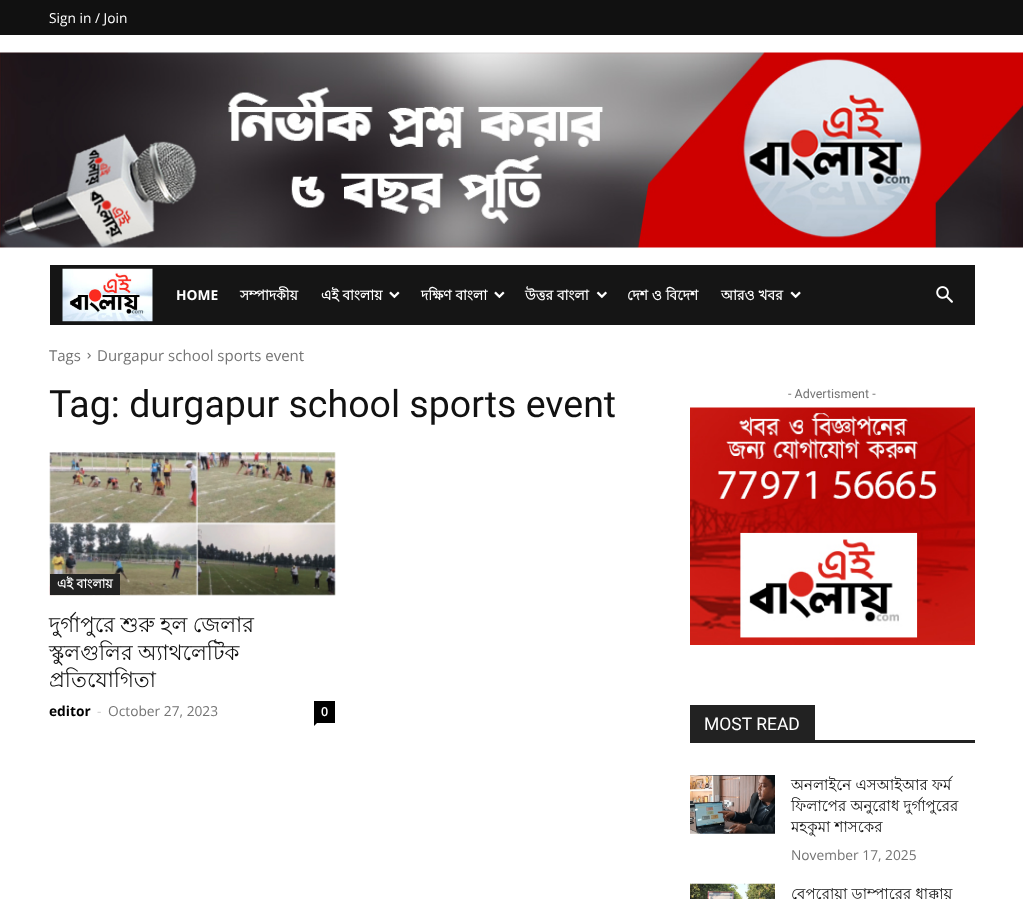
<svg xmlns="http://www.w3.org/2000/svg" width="1023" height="899">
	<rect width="100%" height="100%" fill="#FFFFFF" />
	<rect x="0" y="0" width="1023" height="35" fill="#111111" />
	<text x="49" y="23" font-family="Open Sans" font-size="13.75" fill="#FFFFFF">Sign in / Join</text>
	<image x="0" y="52" width="1023" height="196" href="assets/img1.png" />
	<rect x="50" y="265" width="925" height="60" fill="#151515" />
	<image x="62" y="268" width="91" height="54" href="assets/img2.png" />
	<text x="176" y="300" font-family="Open Sans" font-size="13.75" font-weight="700" fill="#FFFFFF">HOME</text>
	<g font-family="Lohit Bengali" font-size="13.75" font-weight="700" fill="#FFFFFF">
		<text x="240" y="300">সম্পাদকীয়</text>
		<text x="321" y="300">এই বাংলায়</text>
	</g>
	<image x="389" y="291" width="11" height="8" href="assets/img3.png" />
	<text x="421" y="300" font-family="Lohit Bengali" font-size="13.75" font-weight="700" fill="#FFFFFF">দক্ষিণ বাংলা</text>
	<image x="494" y="291" width="11" height="8" href="assets/img3.png" />
	<text x="525" y="300" font-family="Lohit Bengali" font-size="13.75" font-weight="700" fill="#FFFFFF">উত্তর বাংলা</text>
	<image x="596" y="291" width="11" height="8" href="assets/img4.png" />
	<g font-family="Lohit Bengali" font-size="13.75" font-weight="700" fill="#FFFFFF">
		<text x="627" y="300">দেশ ও বিদেশ</text>
		<text x="721" y="300">আরও খবর</text>
	</g>
	<image x="790" y="291" width="11" height="8" href="assets/img5.png" />
	<image x="936" y="286" width="17" height="17" href="assets/img6.png" />
	<text x="49" y="361" font-family="Open Sans" font-size="15" fill="#747474">Tags</text>
	<image x="87" y="352" width="4" height="7" href="assets/img7.png" />
	<text x="97" y="361" font-family="Open Sans" font-size="15" fill="#747474">Durgapur school sports event</text>
	<text x="49" y="417" font-family="Roboto" font-size="37.5" fill="#111111">Tag: durgapur school sports event</text>
	<image x="49" y="452" width="287" height="144" href="assets/img8.png" />
	<rect x="50" y="574" width="70" height="21" fill="#222222" />
	<text x="57" y="588" font-family="Lohit Bengali" font-size="12.5" font-weight="700" fill="#FFFFFF">এই বাংলায়</text>
	<g font-family="Lohit Bengali" font-size="21.25" fill="#111111">
		<text x="49" y="632" word-spacing="-0.5">দুর্গাপুরে শুরু হল জেলার</text>
		<text x="49" y="660" word-spacing="-0.5">স্কুলগুলির অ্যাথলেটিক</text>
		<text x="49" y="687">প্রতিযোগিতা</text>
	</g>
	<text x="49" y="716" font-family="Open Sans" font-size="13.75" font-weight="700" fill="#000000">editor</text>
	<text x="97" y="716" font-family="Open Sans" font-size="13.75" fill="#CCCCCC">-</text>
	<text x="108" y="716" font-family="Open Sans" font-size="13.75" fill="#747474">October 27, 2023</text>
	<rect x="314" y="701" width="21" height="22" fill="#000000" />
	<text x="321" y="716" font-family="Open Sans" font-size="12.5" font-weight="600" fill="#FFFFFF">0</text>
	<path d="M314 722.5H317.5L314 726Z" fill="#000000" />
	<text x="788" y="398" font-family="Roboto" font-size="12.5" fill="#747474">- Advertisment -</text>
	<image x="690" y="407" width="285" height="238" href="assets/img9.png" />
	<rect x="690" y="740" width="285" height="3" fill="#222222" />
	<rect x="690" y="705" width="125" height="35" fill="#222222" />
	<text x="704" y="730" font-family="Roboto" font-size="17.5" fill="#FFFFFF">MOST READ</text>
	<image x="690" y="775" width="85" height="59" href="assets/img10.png" />
	<g font-family="Lohit Bengali" font-size="15" fill="#111111">
		<text x="791" y="790">অনলাইনে এসআইআর ফর্ম</text>
		<text x="791" y="811">ফিলাপের অনুরোধ দুর্গাপুরের</text>
		<text x="791" y="832">মহকুমা শাসকের</text>
	</g>
	<text x="791" y="860" font-family="Open Sans" font-size="13.75" fill="#747474">November 17, 2025</text>
	<image x="690" y="883" width="85" height="16" href="assets/img11.png" />
	<text x="791" y="899" font-family="Lohit Bengali" font-size="15" fill="#111111">বেপরোয়া ডাম্পারের ধাক্কায়</text>
</svg>
